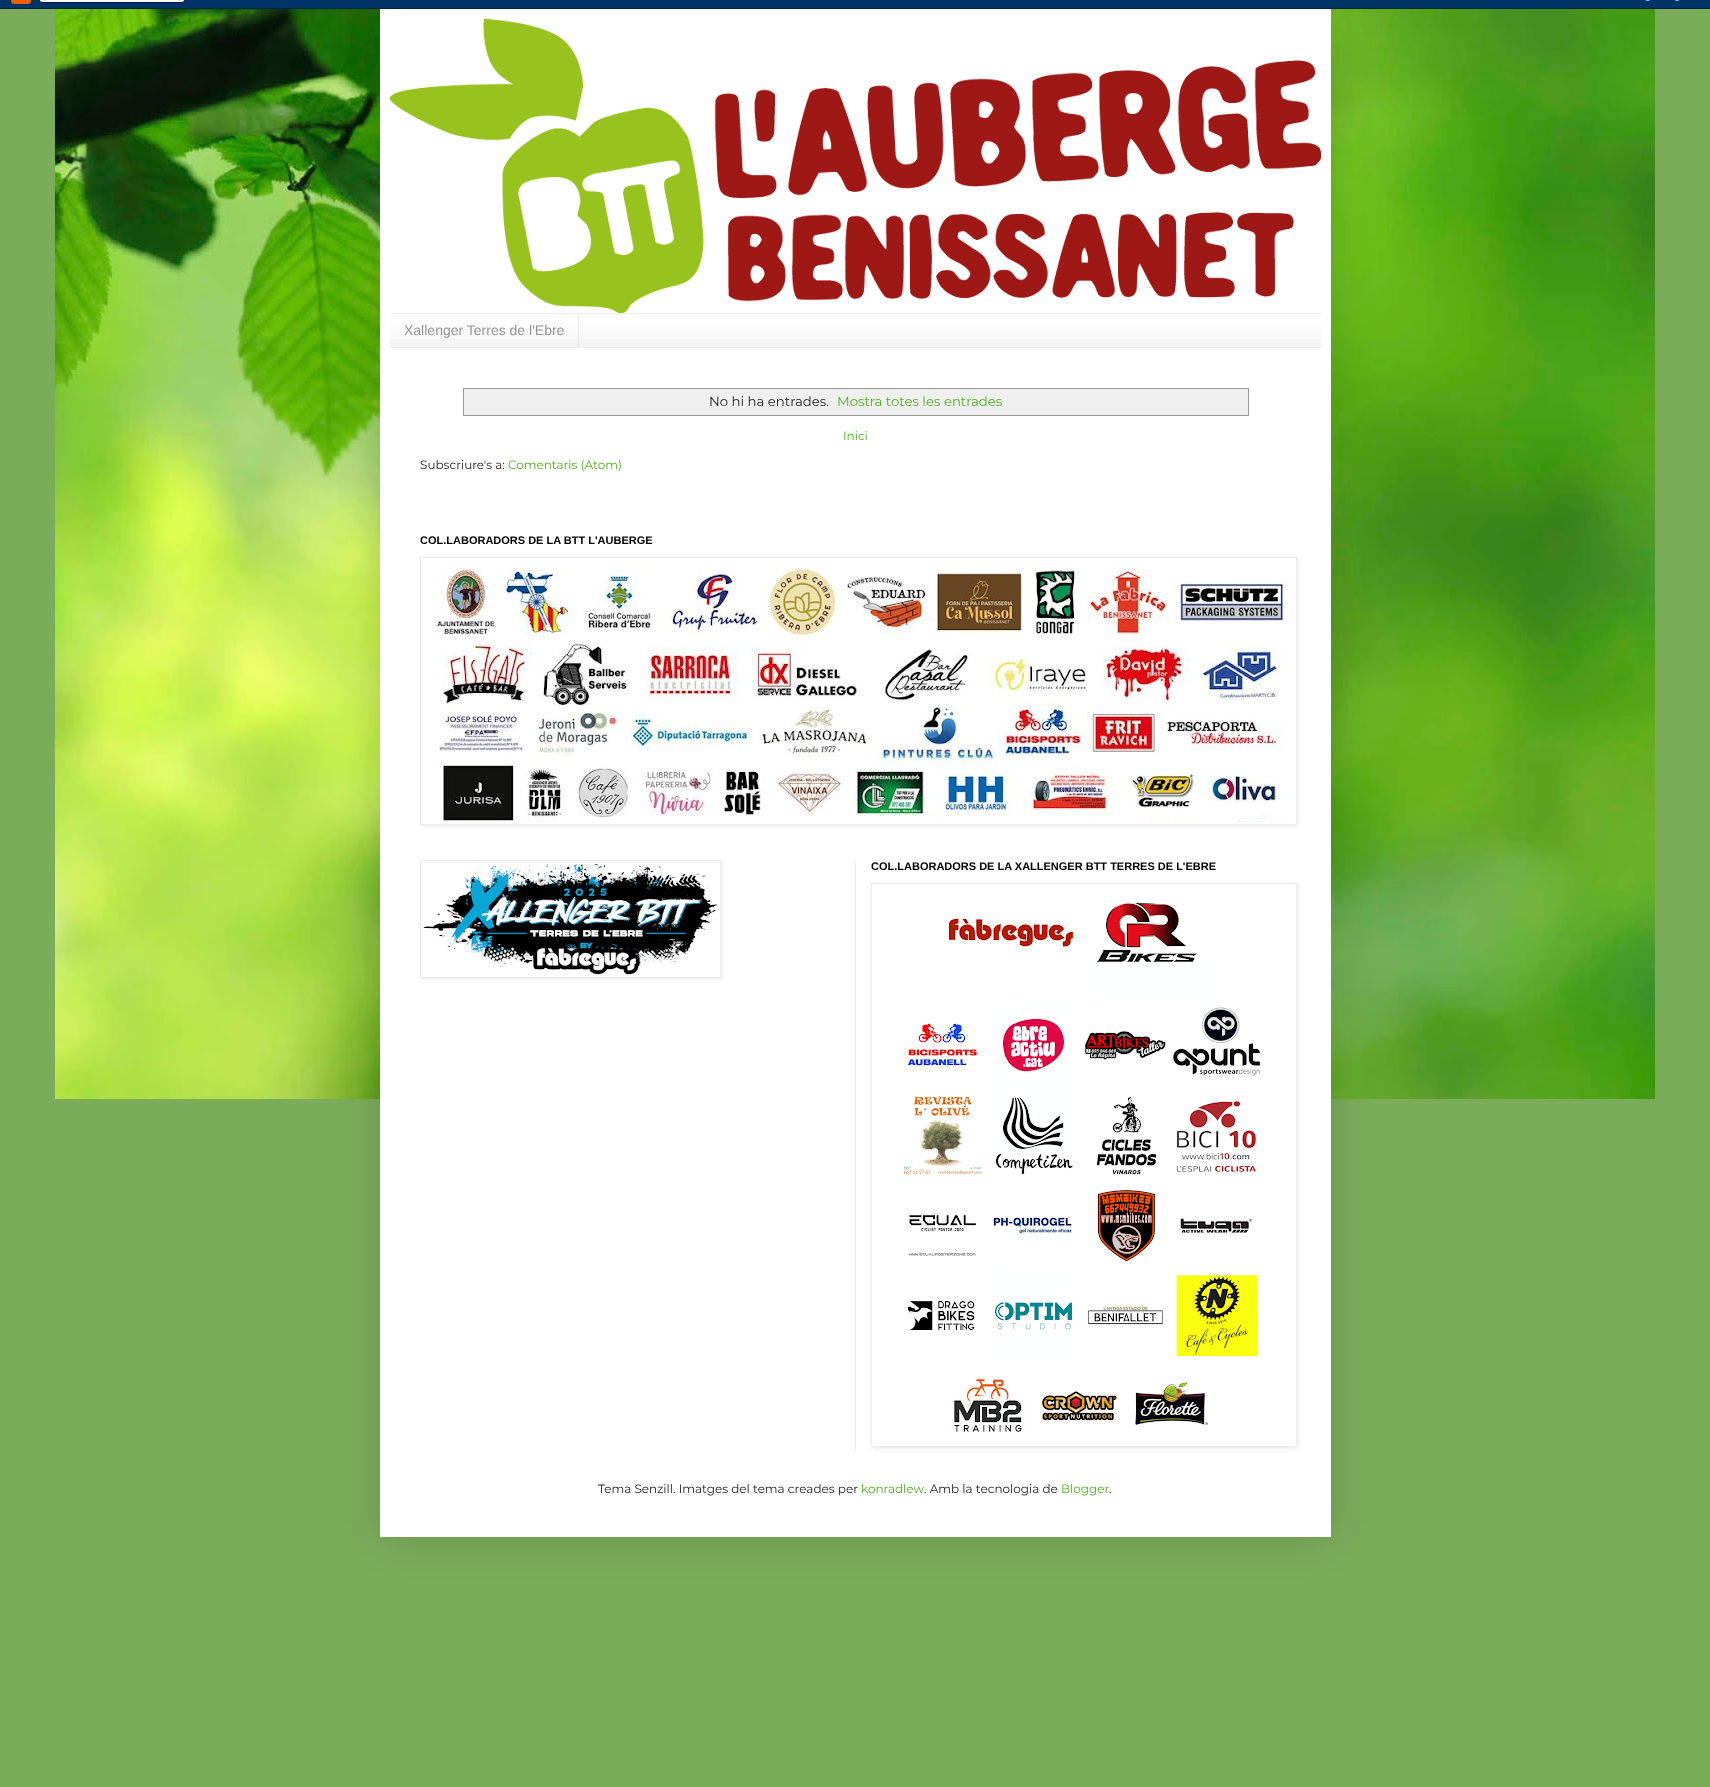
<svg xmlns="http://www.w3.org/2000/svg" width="1710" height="1787">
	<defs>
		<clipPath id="clip1"><path d="M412 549H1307V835H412ZM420 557H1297V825H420Z" clip-rule="evenodd" /></clipPath>
		<clipPath id="clip2"><path d="M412 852H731V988H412ZM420 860H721V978H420Z" clip-rule="evenodd" /></clipPath>
		<clipPath id="clip3"><path d="M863 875H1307V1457H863ZM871 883H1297V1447H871Z" clip-rule="evenodd" /></clipPath>
	</defs>
	<rect width="100%" height="100%" fill="#7BAC5A" />
	<image x="55" y="9" width="1600" height="1090" href="assets/img1.png" />
	<rect x="380" y="9" width="951" height="1528" fill="#000000" fill-opacity="0.15" filter="blur(20px)" />
	<image x="0" y="0" width="1710" height="9" href="assets/img2.png" />
	<rect x="380" y="9" width="951" height="1528" fill="#FFFFFF" />
	<image x="390" y="19" width="931" height="294" href="assets/img3.png" />
	<rect x="390" y="315" width="931" height="32" fill="#F4F4F4" />
	<image x="390" y="314" width="931" height="25" href="assets/img4.png" />
	<rect x="390" y="313" width="931" height="1" fill="#EDEDED" />
	<rect x="390" y="347" width="931" height="1" fill="#EDEDED" />
	<rect x="578" y="314" width="1" height="33" fill="#EDEDED" />
	<text x="404" y="335" font-family="Liberation Sans" font-size="14" fill="#959595">Xallenger Terres de l'Ebre</text>
	<rect x="463.5" y="388.5" width="785" height="27" fill="none" stroke="#999999" />
	<rect x="464" y="389" width="784" height="26" fill="#EFEFEF" />
	<text x="709" y="406" font-family="Montserrat" font-size="13.25" font-weight="100" fill="#222222">No hi ha entrades.</text>
	<text x="837" y="406" font-family="Montserrat" font-size="13.25" font-weight="100" fill="#52AF20">Mostra totes les entrades</text>
	<text x="843" y="440" font-family="Montserrat" font-size="12" font-weight="100" fill="#52AF20">Inici</text>
	<text x="420" y="469" font-family="Montserrat" font-size="12" font-weight="100" fill="#222222">Subscriure's a:</text>
	<text x="508" y="469" font-family="Montserrat" font-size="12" font-weight="100" fill="#52AF20">Comentaris (Atom)</text>
	<text x="420" y="544" font-family="Liberation Sans" font-size="11" font-weight="700" fill="#000000">COL.LABORADORS DE LA BTT L'AUBERGE</text>
	<g clip-path="url(#clip1)">
		<rect x="421" y="558" width="877" height="268" fill="#000000" fill-opacity="0.1" filter="blur(2.5px)" />
	</g>
	<rect x="420.5" y="557.5" width="876" height="267" fill="none" stroke="#EDEDED" />
	<image x="432" y="560" width="856" height="262" href="assets/img5.png" />
	<g clip-path="url(#clip2)">
		<rect x="421" y="861" width="301" height="118" fill="#000000" fill-opacity="0.1" filter="blur(2.5px)" />
	</g>
	<rect x="420.5" y="860.5" width="300" height="117" fill="none" stroke="#EDEDED" />
	<image x="423" y="864" width="295" height="111" href="assets/img6.png" />
	<rect x="855" y="860" width="1" height="591" fill="#EDEDED" />
	<text x="871" y="870" font-family="Liberation Sans" font-size="11" font-weight="700" fill="#000000">COL.LABORADORS DE LA XALLENGER BTT TERRES DE L'EBRE</text>
	<g clip-path="url(#clip3)">
		<rect x="872" y="884" width="426" height="564" fill="#000000" fill-opacity="0.1" filter="blur(2.5px)" />
	</g>
	<rect x="871.5" y="883.5" width="425" height="563" fill="none" stroke="#EDEDED" />
	<image x="903" y="902" width="358" height="530" href="assets/img7.png" />
	<text x="598" y="1493" font-family="Montserrat" font-size="12" font-weight="100" fill="#222222">Tema Senzill. Imatges del tema creades per</text>
	<text x="861" y="1493" font-family="Montserrat" font-size="12" font-weight="100" fill="#52AF20">konradlew</text>
	<text x="924" y="1493" font-family="Montserrat" font-size="12" font-weight="100" fill="#222222">. Amb la tecnologia de</text>
	<text x="1061" y="1493" font-family="Montserrat" font-size="12" font-weight="100" fill="#52AF20">Blogger</text>
	<text x="1109" y="1493" font-family="Montserrat" font-size="12" font-weight="100" fill="#222222">.</text>
</svg>
